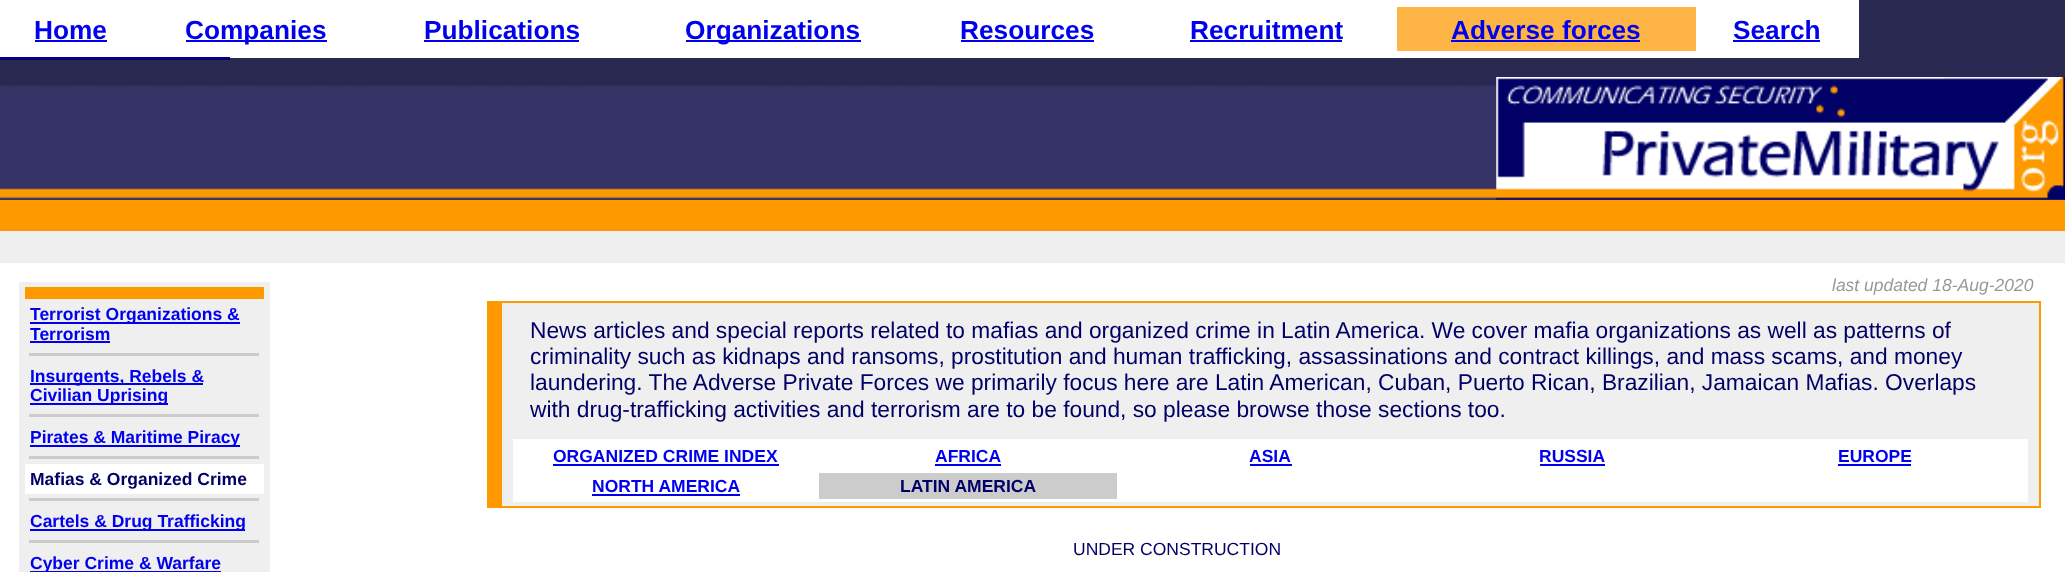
<svg xmlns="http://www.w3.org/2000/svg" width="2065" height="572">
	<rect width="100%" height="100%" fill="#FFFFFF" />
	<rect x="1859" y="0" width="206" height="58" fill="#2A2951" />
	<text x="34" y="39" font-family="Liberation Sans" font-size="26.25" font-weight="700" fill="#0000EE">Home</text>
	<rect x="35" y="40" width="72" height="2" fill="#0000EE" />
	<rect x="186" y="40" width="141" height="2" fill="#0000EE" />
	<g font-family="Liberation Sans" font-size="26.25" font-weight="700" fill="#0000EE">
		<text x="185" y="39">Companies</text>
		<text x="424" y="39">Publications</text>
	</g>
	<rect x="424" y="40" width="155" height="2" fill="#0000EE" />
	<rect x="686" y="40" width="175" height="2" fill="#0000EE" />
	<g font-family="Liberation Sans" font-size="26.25" font-weight="700" fill="#0000EE">
		<text x="685" y="39">Organizations</text>
		<text x="960" y="39">Resources</text>
	</g>
	<rect x="961" y="40" width="133" height="2" fill="#0000EE" />
	<text x="1190" y="39" font-family="Liberation Sans" font-size="26.25" font-weight="700" fill="#0000EE">Recruitment</text>
	<rect x="1190" y="40" width="152" height="2" fill="#0000EE" />
	<rect x="1397" y="7" width="299" height="44" fill="#FFB546" />
	<text x="1451" y="39" font-family="Liberation Sans" font-size="26.25" font-weight="700" fill="#0000EE">Adverse forces</text>
	<rect x="1451" y="40" width="189" height="2" fill="#0000EE" />
	<text x="1733" y="39" font-family="Liberation Sans" font-size="26.25" font-weight="700" fill="#0000EE">Search</text>
	<rect x="1733" y="40" width="87" height="2" fill="#0000EE" />
	<rect x="0" y="58" width="2065" height="19" fill="#2A2951" />
	<rect x="0" y="57" width="230" height="3" fill="#000080" />
	<rect x="0" y="199" width="2065" height="1" fill="#333366" />
	<image x="0" y="77" width="1497" height="122" href="assets/img1.png" />
	<image x="1496" y="77" width="569" height="123" href="assets/img2.png" />
	<rect x="0" y="200" width="2065" height="31" fill="#FF9900" />
	<rect x="0" y="231" width="2065" height="32" fill="#EFEFEF" />
	<rect x="19" y="282" width="251" height="290" fill="#EFEFEF" />
	<rect x="25" y="287" width="239" height="12" fill="#FF9900" />
	<rect x="30" y="322" width="210" height="2" fill="#0000EE" />
	<g font-family="Liberation Sans" font-size="17.5" font-weight="700" fill="#0000EE">
		<text x="30" y="320">Terrorist Organizations &amp;</text>
		<text x="30" y="340">Terrorism</text>
	</g>
	<rect x="30" y="341" width="80" height="2" fill="#0000EE" />
	<rect x="29" y="353" width="230" height="3" fill="#CCCCCC" />
	<rect x="30" y="383" width="173" height="2" fill="#0000EE" />
	<text x="30" y="382" font-family="Liberation Sans" font-size="17.5" font-weight="700" fill="#0000EE">Insurgents, Rebels &amp;</text>
	<rect x="30" y="403" width="138" height="2" fill="#0000EE" />
	<text x="30" y="401" font-family="Liberation Sans" font-size="17.5" font-weight="700" fill="#0000EE">Civilian Uprising</text>
	<rect x="29" y="414" width="230" height="3" fill="#CCCCCC" />
	<rect x="30" y="445" width="210" height="2" fill="#0000EE" />
	<text x="30" y="443" font-family="Liberation Sans" font-size="17.5" font-weight="700" fill="#0000EE">Pirates &amp; Maritime Piracy</text>
	<rect x="29" y="456" width="230" height="3" fill="#CCCCCC" />
	<rect x="25" y="464" width="239" height="30" fill="#FFFFFF" />
	<text x="30" y="485" font-family="Liberation Sans" font-size="17.5" font-weight="700" fill="#000066">Mafias &amp; Organized Crime</text>
	<rect x="29" y="498" width="230" height="3" fill="#CCCCCC" />
	<rect x="30" y="529" width="215" height="2" fill="#0000EE" />
	<text x="30" y="527" font-family="Liberation Sans" font-size="17.5" font-weight="700" fill="#0000EE">Cartels &amp; Drug Trafficking</text>
	<rect x="29" y="540" width="230" height="3" fill="#CCCCCC" />
	<rect x="30" y="571" width="191" height="1" fill="#0000EE" />
	<text x="30" y="569" font-family="Liberation Sans" font-size="17.5" font-weight="700" fill="#0000EE">Cyber Crime &amp; Warfare</text>
	<text x="1832" y="291" font-family="Liberation Sans" font-size="17.5" font-style="italic" fill="#999999">last updated 18-Aug-2020</text>
	<rect x="487" y="301" width="1554" height="207" fill="#FF9900" />
	<rect x="502" y="303" width="1537" height="203" fill="#EFEFEF" />
	<g font-family="Liberation Sans" font-size="22.75" fill="#000066">
		<text x="530" y="338">News articles and special reports related to mafias and organized crime in Latin America. We cover mafia organizations as well as patterns of</text>
		<text x="530" y="364">criminality such as kidnaps and ransoms, prostitution and human trafficking, assassinations and contract killings, and mass scams, and money</text>
		<text x="530" y="390">laundering. The Adverse Private Forces we primarily focus here are Latin American, Cuban, Puerto Rican, Brazilian, Jamaican Mafias. Overlaps</text>
		<text x="530" y="417">with drug-trafficking activities and terrorism are to be found, so please browse those sections too.</text>
	</g>
	<rect x="513" y="439" width="1515" height="63" fill="#FFFFFF" />
	<text x="553" y="462" font-family="Liberation Sans" font-size="17.5" font-weight="700" fill="#0000EE">ORGANIZED CRIME INDEX</text>
	<rect x="553" y="464" width="226" height="2" fill="#0000EE" />
	<text x="935" y="462" font-family="Liberation Sans" font-size="17.5" font-weight="700" fill="#0000EE">AFRICA</text>
	<rect x="935" y="464" width="66" height="2" fill="#0000EE" />
	<text x="1249" y="462" font-family="Liberation Sans" font-size="17.5" font-weight="700" fill="#0000EE">ASIA</text>
	<rect x="1250" y="464" width="42" height="2" fill="#0000EE" />
	<text x="1539" y="462" font-family="Liberation Sans" font-size="17.5" font-weight="700" fill="#0000EE">RUSSIA</text>
	<rect x="1540" y="464" width="65" height="2" fill="#0000EE" />
	<text x="1838" y="462" font-family="Liberation Sans" font-size="17.5" font-weight="700" fill="#0000EE">EUROPE</text>
	<rect x="1838" y="464" width="73" height="2" fill="#0000EE" />
	<text x="592" y="492" font-family="Liberation Sans" font-size="17.5" font-weight="700" fill="#0000EE">NORTH AMERICA</text>
	<rect x="592" y="494" width="148" height="2" fill="#0000EE" />
	<rect x="819" y="473" width="298" height="26" fill="#CCCCCC" />
	<text x="900" y="492" font-family="Liberation Sans" font-size="17.5" font-weight="700" fill="#000066">LATIN AMERICA</text>
	<text x="1073" y="555" font-family="Liberation Sans" font-size="17.5" fill="#000066">UNDER CONSTRUCTION</text>
</svg>
